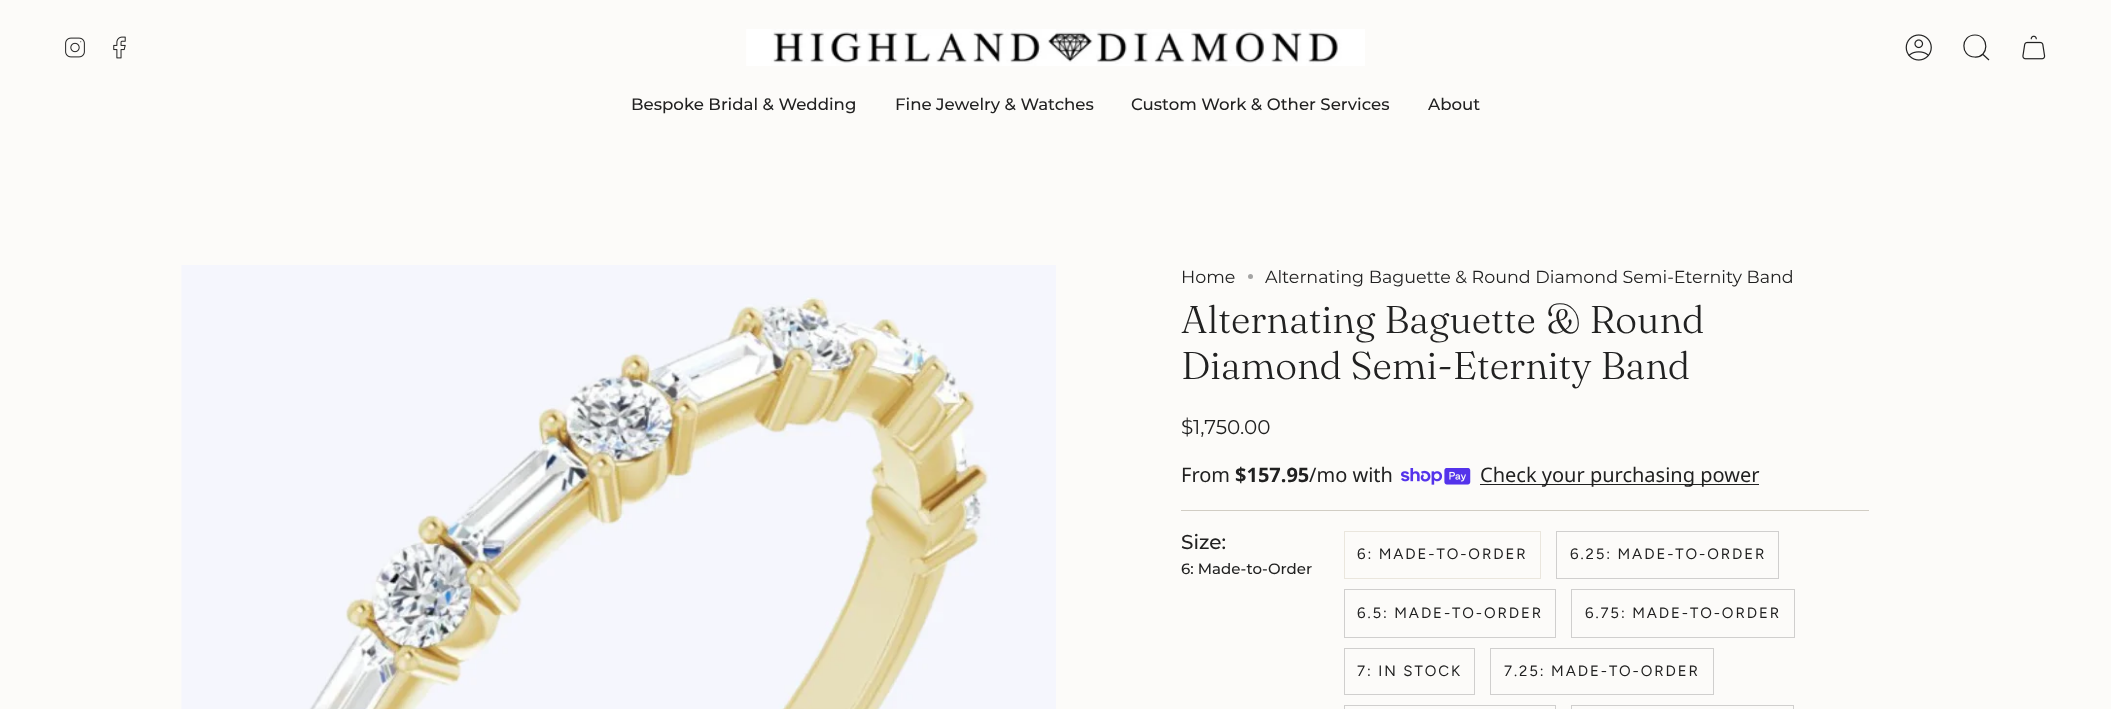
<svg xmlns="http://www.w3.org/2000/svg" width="2111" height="709">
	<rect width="100%" height="100%" fill="#FCFBF9" />
	<image x="65" y="37" width="20" height="21" href="assets/img1.png" />
	<image x="113" y="36" width="13" height="23" href="assets/img2.png" />
	<image x="746" y="29" width="619" height="37" href="assets/img3.png" />
	<image x="1905" y="34" width="27" height="27" href="assets/img4.png" />
	<path d="M1975 35C1989.5 35 1989.5 58 1974.5 57C1960 56.5 1960.5 35 1975 35ZM1982.5 54L1989 60" fill="none" stroke="#212121" stroke-width="1.2" />
	<image x="2022" y="35" width="24" height="25" href="assets/img5.png" />
	<g font-family="Montserrat" font-size="16.6" font-weight="500" fill="#212121">
		<text x="631" y="110">Bespoke Bridal &amp; Wedding</text>
		<text x="895" y="110">Fine Jewelry &amp; Watches</text>
		<text x="1131" y="110">Custom Work &amp; Other Services</text>
		<text x="1428" y="110">About</text>
	</g>
	<image x="181" y="265" width="875" height="444" href="assets/img6.png" />
	<text x="1181" y="283" font-family="Montserrat" font-size="17.5" fill="#212121">Home</text>
	<circle cx="1250.5" cy="276.5" r="2.5" fill="#A4A4A3" />
	<text x="1265" y="283" font-family="Montserrat" font-size="17.5" fill="#212121">Alternating Baguette &amp; Round Diamond Semi-Eternity Band</text>
	<g font-family="Fraunces" font-size="38.75" font-weight="300" fill="#212121">
		<text x="1181" y="333">Alternating Baguette &amp; Round</text>
		<text x="1181" y="379">Diamond Semi-Eternity Band</text>
	</g>
	<text x="1181" y="434" font-family="Montserrat" font-size="20" fill="#212121">$1,750.00</text>
	<text x="1181" y="482" font-family="Noto Sans" font-size="20" fill="#212121">From</text>
	<text x="1235" y="482" font-family="Noto Sans" font-size="20" font-weight="700" fill="#212121">$157.95</text>
	<text x="1309" y="482" font-family="Noto Sans" font-size="20" fill="#212121">/mo with</text>
	<image x="1401" y="468" width="70" height="17" href="assets/img7.png" />
	<rect x="1480" y="484" width="279" height="1" fill="#212121" />
	<text x="1480" y="482" font-family="Noto Sans" font-size="20" fill="#212121">Check your purchasing power</text>
	<rect x="1181" y="510" width="688" height="1" fill="#D1CDC4" />
	<text x="1181" y="549" font-family="Montserrat" font-size="20" font-weight="500" fill="#212121">Size:</text>
	<text x="1181" y="574" font-family="Montserrat" font-size="15" font-weight="500" fill="#212121">6: Made-to-Order</text>
	<rect x="1344.5" y="531.5" width="196" height="47" fill="none" stroke="#EAE6DD" />
	<text x="1357" y="559" font-family="Figtree" font-size="15" letter-spacing="1.9" fill="#212121">6: MADE-TO-ORDER</text>
	<rect x="1556.5" y="531.5" width="222" height="47" fill="none" stroke="#D0CFCE" />
	<text x="1570" y="559" font-family="Figtree" font-size="15" letter-spacing="1.9" fill="#212121">6.25: MADE-TO-ORDER</text>
	<rect x="1344.5" y="589.5" width="211" height="48" fill="none" stroke="#D0CFCE" />
	<text x="1357" y="618" font-family="Figtree" font-size="15" letter-spacing="1.9" fill="#212121">6.5: MADE-TO-ORDER</text>
	<rect x="1571.5" y="589.5" width="223" height="48" fill="none" stroke="#D0CFCE" />
	<text x="1585" y="618" font-family="Figtree" font-size="15" letter-spacing="1.9" fill="#212121">6.75: MADE-TO-ORDER</text>
	<rect x="1344.5" y="648.5" width="130" height="46" fill="none" stroke="#D0CFCE" />
	<text x="1357" y="676" font-family="Figtree" font-size="15" letter-spacing="1.9" fill="#212121">7: IN STOCK</text>
	<rect x="1490.5" y="648.5" width="223" height="46" fill="none" stroke="#D0CFCE" />
	<text x="1504" y="676" font-family="Figtree" font-size="15" letter-spacing="1.9" fill="#212121">7.25: MADE-TO-ORDER</text>
	<rect x="1344.5" y="705.5" width="211" height="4" fill="none" stroke="#D0CFCE" />
	<rect x="1571.5" y="705.5" width="222" height="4" fill="none" stroke="#D0CFCE" />
</svg>
